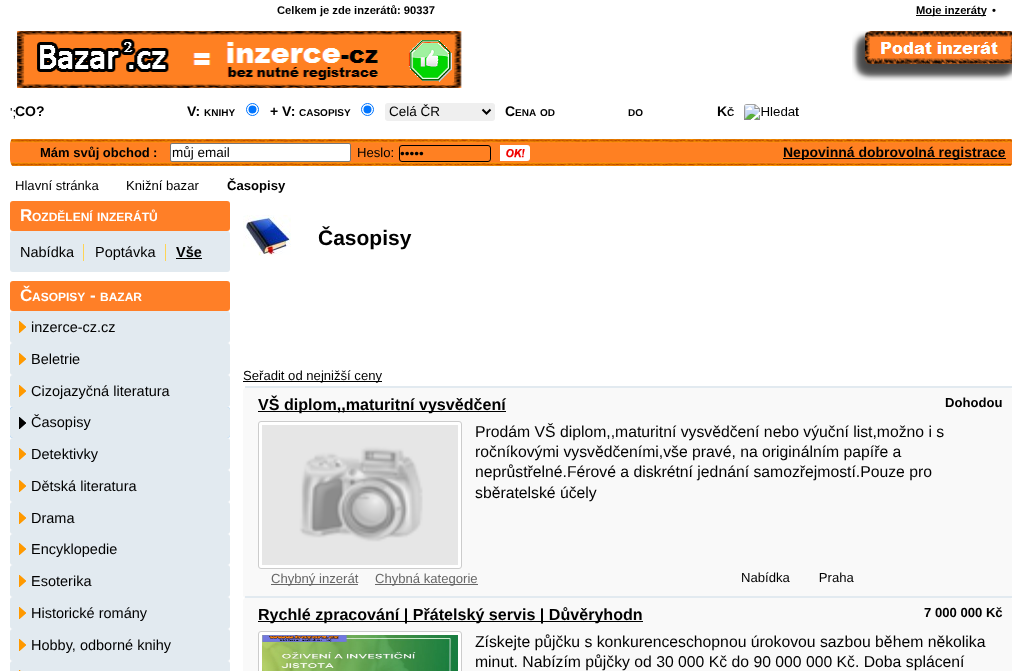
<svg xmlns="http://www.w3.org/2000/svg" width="1012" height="671">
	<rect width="100%" height="100%" fill="#FFFFFF" />
	<text x="277" y="14" font-family="Liberation Sans" font-size="11.2" font-weight="700" fill="#000000">Celkem je zde inzerátů: 90337</text>
	<rect x="916" y="15" width="70" height="1" fill="#000000" />
	<g font-family="Liberation Sans" font-size="11.2" font-weight="700" fill="#000000">
		<text x="916" y="14">Moje inzeráty</text>
		<text x="992" y="14">•</text>
	</g>
	<image x="17" y="31" width="445" height="57" href="assets/img1.png" />
	<image x="852" y="31" width="160" height="50" href="assets/img2.png" />
	<text x="10" y="117" font-family="Liberation Sans" font-size="13.1" fill="#000000">';</text>
	<g font-family="Liberation Sans" font-size="14" font-weight="700" fill="#000000">
		<text x="15" y="116">CO?</text>
		<text x="187" y="116">V:</text>
	</g>
	<text x="204" y="116" font-family="Liberation Sans" font-size="10" font-weight="700" fill="#000000">KNIHY</text>
	<circle cx="252.5" cy="109.5" r="6" fill="none" stroke="#0075FF" />
	<circle cx="252.5" cy="109.5" r="4" fill="#0075FF" />
	<text x="270" y="116" font-family="Liberation Sans" font-size="14" font-weight="700" fill="#000000">+ V:</text>
	<text x="299" y="116" font-family="Liberation Sans" font-size="10" font-weight="700" fill="#000000">CASOPISY</text>
	<circle cx="367.5" cy="109.5" r="6" fill="none" stroke="#0075FF" />
	<circle cx="367.5" cy="109.5" r="4" fill="#0075FF" />
	<rect x="385" y="103" width="110" height="18" rx="3" fill="#EFEFEF" />
	<path d="M482.5 109.5L486.5 113.5L490.5 109.5" fill="none" stroke="#000000" stroke-width="2" />
	<text x="389" y="116" font-family="Liberation Sans" font-size="13.5" fill="#000000">Celá ČR</text>
	<text x="505" y="116" font-family="Liberation Sans" font-size="14" font-weight="700" fill="#000000">C</text>
	<g font-family="Liberation Sans" font-size="10" font-weight="700" fill="#000000">
		<text x="515" y="116">ENA</text>
		<text x="540" y="116">OD</text>
		<text x="628" y="116">DO</text>
	</g>
	<text x="717" y="116" font-family="Liberation Sans" font-size="14" font-weight="700" fill="#000000">K</text>
	<text x="727" y="116" font-family="Liberation Sans" font-size="10" font-weight="700" fill="#000000">Č</text>
	<image x="744" y="104" width="55" height="16" href="assets/img3.png" />
	<text x="795" y="116" font-family="Liberation Sans" font-size="13.5" fill="#000000">t</text>
	<image x="10" y="139" width="1002" height="27" href="assets/img4.png" />
	<image x="28" y="139" width="982" height="27" href="assets/img5.png" />
	<text x="40" y="157" font-family="Liberation Sans" font-size="13" font-weight="700" fill="#000000">Mám svůj obchod</text>
	<text x="153" y="157" font-family="Liberation Sans" font-size="13.1" font-weight="700" fill="#000000">:</text>
	<rect x="170.5" y="143.5" width="180" height="18" rx="1.5" fill="#FFFFFF" stroke="#767676" />
	<text x="172" y="157" font-family="Liberation Sans" font-size="13.5" fill="#000000">můj email</text>
	<text x="357" y="157" font-family="Liberation Sans" font-size="13.1" fill="#000000">Heslo:</text>
	<rect x="399.5" y="145.5" width="91" height="16" rx="2.5" fill="none" stroke="#000000" />
	<text x="400" y="158" font-family="Liberation Sans" font-size="13.5" fill="#000000">•••••</text>
	<image x="500" y="145" width="30" height="16" href="assets/img6.png" />
	<rect x="783" y="158" width="223" height="1" fill="#000000" />
	<text x="783" y="157" font-family="Liberation Sans" font-size="14" font-weight="700" fill="#000000">Nepovinná dobrovolná registrace</text>
	<g font-family="Liberation Sans" font-size="13.1" fill="#000000">
		<text x="15" y="190">Hlavní stránka</text>
		<text x="126" y="190">Knižní bazar</text>
	</g>
	<text x="227" y="190" font-family="Liberation Sans" font-size="13.1" font-weight="700" fill="#000000">Časopisy</text>
	<rect x="10" y="201" width="220" height="30" rx="3" fill="#FF7F27" />
	<text x="20" y="221" font-family="Liberation Sans" font-size="17" font-weight="700" fill="#FFFFFF">R</text>
	<g font-family="Liberation Sans" font-size="12" font-weight="700" fill="#FFFFFF">
		<text x="32" y="221">OZDĚLENÍ</text>
		<text x="97" y="221">INZERÁTŮ</text>
	</g>
	<rect x="10" y="231" width="220" height="41" rx="3" fill="#E2EAF0" />
	<text x="20" y="257" font-family="Liberation Sans" font-size="14.5" fill="#000000">Nabídka</text>
	<rect x="83" y="244" width="1" height="17" fill="#FED455" />
	<text x="95" y="257" font-family="Liberation Sans" font-size="14.5" fill="#000000">Poptávka</text>
	<rect x="165" y="244" width="1" height="17" fill="#FED455" />
	<text x="176" y="257" font-family="Liberation Sans" font-size="14.5" font-weight="700" fill="#000000">Vše</text>
	<rect x="176" y="258" width="26" height="1" fill="#000000" />
	<rect x="10" y="281" width="220" height="30" rx="3" fill="#FF7F27" />
	<text x="20" y="301" font-family="Liberation Sans" font-size="17" font-weight="700" fill="#FFFFFF">Č</text>
	<text x="32" y="301" font-family="Liberation Sans" font-size="12" font-weight="700" fill="#FFFFFF">ASOPISY</text>
	<text x="90" y="301" font-family="Liberation Sans" font-size="17" font-weight="700" fill="#FFFFFF">-</text>
	<text x="100" y="301" font-family="Liberation Sans" font-size="12" font-weight="700" fill="#FFFFFF">BAZAR</text>
	<rect x="10" y="311" width="220" height="32" rx="3" fill="#E2EAF0" />
	<image x="19" y="321" width="7" height="12" href="assets/img7.png" />
	<text x="31" y="332" font-family="Liberation Sans" font-size="14.5" fill="#000000">inzerce-cz.cz</text>
	<rect x="10" y="343" width="220" height="32" rx="3" fill="#E2EAF0" />
	<image x="19" y="353" width="7" height="12" href="assets/img7.png" />
	<text x="31" y="364" font-family="Liberation Sans" font-size="14.5" fill="#000000">Beletrie</text>
	<rect x="10" y="375" width="220" height="32" rx="3" fill="#E2EAF0" />
	<image x="19" y="385" width="7" height="12" href="assets/img7.png" />
	<text x="31" y="396" font-family="Liberation Sans" font-size="14.5" fill="#000000">Cizojazyčná literatura</text>
	<image x="10" y="407" width="220" height="31" href="assets/img8.png" />
	<rect x="10" y="407" width="220" height="31" rx="3" fill="#E2EAF0" />
	<image x="19" y="417" width="7" height="12" href="assets/img9.png" />
	<text x="31" y="427" font-family="Liberation Sans" font-size="14.5" fill="#000000">Časopisy</text>
	<rect x="10" y="438" width="220" height="32" rx="3" fill="#E2EAF0" />
	<image x="19" y="448" width="7" height="12" href="assets/img7.png" />
	<text x="31" y="459" font-family="Liberation Sans" font-size="14.5" fill="#000000">Detektivky</text>
	<rect x="10" y="470" width="220" height="32" rx="3" fill="#E2EAF0" />
	<image x="19" y="480" width="7" height="12" href="assets/img7.png" />
	<text x="31" y="491" font-family="Liberation Sans" font-size="14.5" fill="#000000">Dětská literatura</text>
	<rect x="10" y="502" width="220" height="32" rx="3" fill="#E2EAF0" />
	<image x="19" y="512" width="7" height="12" href="assets/img7.png" />
	<text x="31" y="523" font-family="Liberation Sans" font-size="14.5" fill="#000000">Drama</text>
	<rect x="10" y="534" width="220" height="31" rx="3" fill="#E2EAF0" />
	<image x="19" y="543" width="7" height="12" href="assets/img7.png" />
	<text x="31" y="554" font-family="Liberation Sans" font-size="14.5" fill="#000000">Encyklopedie</text>
	<rect x="10" y="565" width="220" height="32" rx="3" fill="#E2EAF0" />
	<image x="19" y="575" width="7" height="12" href="assets/img7.png" />
	<text x="31" y="586" font-family="Liberation Sans" font-size="14.5" fill="#000000">Esoterika</text>
	<rect x="10" y="597" width="220" height="32" rx="3" fill="#E2EAF0" />
	<image x="19" y="607" width="7" height="12" href="assets/img7.png" />
	<text x="31" y="618" font-family="Liberation Sans" font-size="14.5" fill="#000000">Historické romány</text>
	<rect x="10" y="629" width="220" height="32" rx="3" fill="#E2EAF0" />
	<image x="19" y="639" width="7" height="12" href="assets/img7.png" />
	<text x="31" y="650" font-family="Liberation Sans" font-size="14.5" fill="#000000">Hobby, odborné knihy</text>
	<rect x="10" y="661" width="220" height="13" rx="3" fill="#E2EAF0" />
	<image x="19" y="670" width="2" height="1" href="assets/img10.png" />
	<image x="243" y="215" width="48" height="41" href="assets/img11.png" />
	<text x="318" y="245" font-family="Liberation Sans" font-size="21" font-weight="700" fill="#000000">Časopisy</text>
	<rect x="243" y="381" width="139" height="1" fill="#000000" />
	<text x="243" y="380" font-family="Liberation Sans" font-size="13.1" fill="#000000">Seřadit od nejnižší ceny</text>
	<rect x="245" y="386" width="767" height="2" fill="#E2EAF0" />
	<rect x="243" y="388" width="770" height="210" rx="3" fill="#F9F9F9" />
	<rect x="245" y="596" width="767" height="2" fill="#E2EAF0" />
	<rect x="258" y="411" width="248" height="1" fill="#000000" />
	<text x="258" y="410" font-family="Liberation Sans" font-size="16.1" font-weight="700" fill="#000000">VŠ diplom,,maturitní vysvědčení</text>
	<text x="945" y="407" font-family="Liberation Sans" font-size="13.1" font-weight="700" fill="#000000">Dohodou</text>
	<text x="741" y="582" font-family="Liberation Sans" font-size="13.1" fill="#000000" xml:space="preserve">Nabídka        Praha</text>
	<rect x="258.5" y="421.5" width="203" height="147" rx="2.5" fill="#FFFFFF" stroke="#CCCCCC" />
	<image x="262" y="425" width="196" height="140" href="assets/img12.png" />
	<g font-family="Liberation Sans" font-size="15.75" fill="#000000">
		<text x="475" y="437">Prodám VŠ diplom,,maturitní vysvědčení nebo výuční list,možno i s</text>
		<text x="475" y="457">ročníkovými vysvědčeními,vše pravé, na originálním papíře a</text>
		<text x="475" y="477">neprůstřelné.Férové a diskrétní jednání samozřejmostí.Pouze pro</text>
		<text x="475" y="498">sběratelské účely</text>
	</g>
	<rect x="271" y="584" width="87" height="1" fill="#666666" />
	<text x="271" y="583" font-family="Liberation Sans" font-size="13.1" fill="#666666">Chybný inzerát</text>
	<rect x="375" y="584" width="103" height="1" fill="#666666" />
	<text x="375" y="583" font-family="Liberation Sans" font-size="13.1" fill="#666666">Chybná kategorie</text>
	<rect x="243" y="598" width="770" height="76" rx="3" fill="#F9F9F9" />
	<rect x="258" y="621" width="385" height="1" fill="#000000" />
	<text x="258" y="620" font-family="Liberation Sans" font-size="16.1" font-weight="700" fill="#000000">Rychlé zpracování | Přátelský servis | Důvěryhodn</text>
	<text x="924" y="617" font-family="Liberation Sans" font-size="13.1" font-weight="700" fill="#000000">7 000 000 Kč</text>
	<rect x="258.5" y="631.5" width="203" height="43" rx="2.5" fill="#FFFFFF" stroke="#CCCCCC" />
	<image x="262" y="635" width="196" height="36" href="assets/img13.png" />
	<g font-family="Liberation Sans" font-size="15.75" fill="#000000">
		<text x="475" y="647">Získejte půjčku s konkurenceschopnou úrokovou sazbou během několika</text>
		<text x="475" y="667">minut. Nabízím půjčky od 30 000 Kč do 90 000 000 Kč. Doba splácení</text>
	</g>
</svg>
